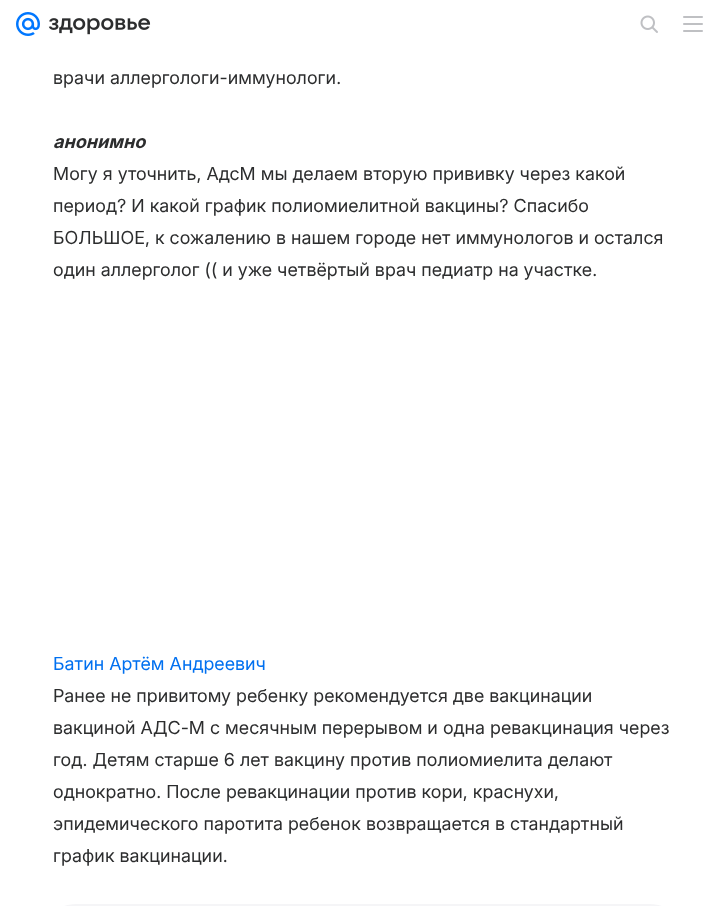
<svg xmlns="http://www.w3.org/2000/svg" width="725" height="906">
	<rect width="100%" height="100%" fill="#FFFFFF" />
	<image x="16" y="12" width="24" height="24" href="assets/img1.png" />
	<image x="48" y="18" width="103" height="17" href="assets/img2.png" />
	<image x="640" y="15" width="18" height="18" href="assets/img3.png" />
	<image x="683" y="16" width="20" height="16" href="assets/img4.png" />
	<text x="53" y="84" font-family="Inter" font-size="18" letter-spacing="0.05" fill="#2C2D2E">врачи аллергологи-иммунологи.</text>
	<text x="53" y="148" font-family="Inter" font-size="18" font-weight="700" font-style="italic" letter-spacing="0.05" fill="#2C2D2E">анонимно</text>
	<g font-family="Inter" font-size="18" letter-spacing="0.05" fill="#2C2D2E">
		<text x="53" y="180">Могу я уточнить, АдсМ мы делаем вторую прививку через какой</text>
		<text x="53" y="212">период? И какой график полиомиелитной вакцины? Спасибо</text>
		<text x="53" y="244">БОЛЬШОЕ, к сожалению в нашем городе нет иммунологов и остался</text>
		<text x="53" y="276">один аллерголог (( и уже четвёртый врач педиатр на участке.</text>
	</g>
	<text x="53" y="670" font-family="Inter" font-size="18" letter-spacing="0.05" fill="#0070F0">Батин Артём Андреевич</text>
	<g font-family="Inter" font-size="18" letter-spacing="0.05" fill="#2C2D2E">
		<text x="53" y="702">Ранее не привитому ребенку рекомендуется две вакцинации</text>
		<text x="53" y="734">вакциной АДС-М с месячным перерывом и одна ревакцинация через</text>
		<text x="53" y="766">год. Детям старше 6 лет вакцину против полиомиелита делают</text>
		<text x="53" y="798">однократно. После ревакцинации против кори, краснухи,</text>
		<text x="53" y="830">эпидемического паротита ребенок возвращается в стандартный</text>
		<text x="53" y="862">график вакцинации.</text>
	</g>
	<rect x="53" y="904" width="620" height="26" rx="24" fill="#F5F5F7" />
</svg>
